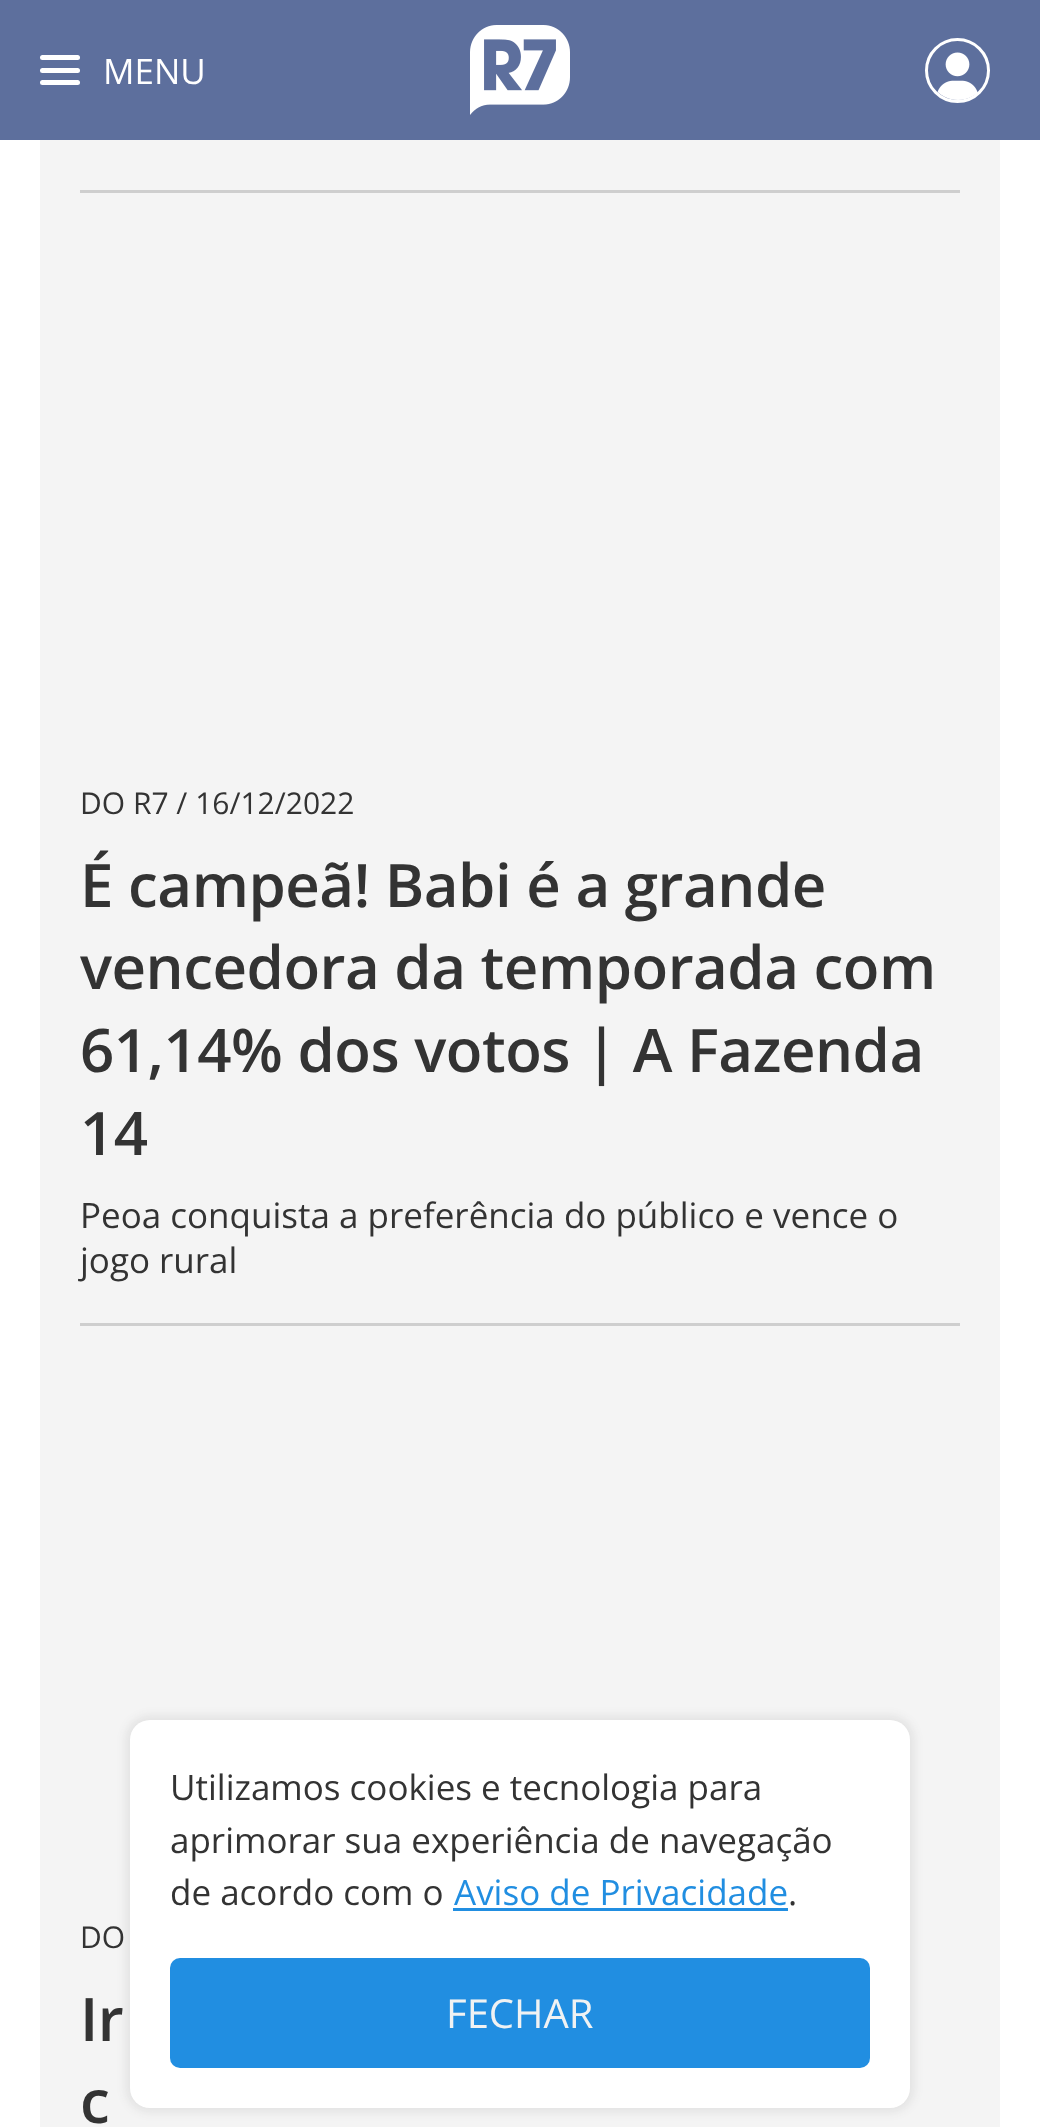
<svg xmlns="http://www.w3.org/2000/svg" width="1040" height="2127">
	<rect width="100%" height="100%" fill="#FFFFFF" />
	<rect x="0" y="0" width="1040" height="140" fill="#5D6F9D" />
	<rect x="40" y="55" width="40" height="5" rx="2.5" fill="#FFFFFF" />
	<rect x="40" y="68" width="40" height="5" rx="2.5" fill="#FFFFFF" />
	<rect x="40" y="80" width="40" height="5" rx="2.5" fill="#FFFFFF" />
	<text x="103" y="84" font-family="Open Sans" font-size="35" fill="#FFFFFF">MENU</text>
	<image x="470" y="25" width="100" height="90" href="assets/img1.png" />
	<circle cx="957.5" cy="70.5" r="31" fill="none" stroke="#FFFFFF" stroke-width="3" />
	<image x="937" y="52" width="41" height="48" href="assets/img2.png" />
	<rect x="40" y="140" width="960" height="1987" fill="#F4F4F4" />
	<rect x="80" y="190" width="880" height="3" fill="#CECECE" />
	<rect x="80" y="1323" width="880" height="3" fill="#CECECE" />
	<text x="80" y="814" font-family="Open Sans" font-size="30" fill="#333333">DO R7 / 16/12/2022</text>
	<g font-family="Open Sans" font-size="60" font-weight="600" letter-spacing="-0.5" fill="#333333">
		<text x="80" y="907">É campeã! Babi é a grande</text>
		<text x="80" y="989">vencedora da temporada com</text>
		<text x="80" y="1072">61,14% dos votos | A Fazenda</text>
		<text x="80" y="1155">14</text>
	</g>
	<g font-family="Open Sans" font-size="35" fill="#333333">
		<text x="80" y="1228">Peoa conquista a preferência do público e vence o</text>
		<text x="80" y="1273">jogo rural</text>
	</g>
	<text x="80" y="1948" font-family="Open Sans" font-size="30" fill="#333333">DO</text>
	<g font-family="Open Sans" font-size="60" font-weight="600" letter-spacing="-0.5" fill="#333333">
		<text x="80" y="2041">Ir</text>
		<text x="80" y="2123">c</text>
	</g>
	<rect x="125" y="1715" width="790" height="398" rx="25" fill="#333333" fill-opacity="0.08" filter="blur(4px)" />
	<rect x="130" y="1720" width="780" height="388" rx="20" fill="#FFFFFF" />
	<g font-family="Open Sans" font-size="35" fill="#333333">
		<text x="170" y="1800">Utilizamos cookies e tecnologia para</text>
		<text x="170" y="1853">aprimorar sua experiência de navegação</text>
		<text x="170" y="1905">de acordo com o</text>
	</g>
	<text x="454" y="1905" font-family="Open Sans" font-size="35" fill="#218EE1">Aviso de Privacidade</text>
	<rect x="453" y="1908" width="335" height="3" fill="#218EE1" />
	<text x="788" y="1905" font-family="Open Sans" font-size="35" fill="#333333">.</text>
	<rect x="170" y="1958" width="700" height="110" rx="10" fill="#218EE1" />
	<text x="446" y="2028" font-family="Open Sans" font-size="40" fill="#F0F2F3">FECHAR</text>
</svg>
